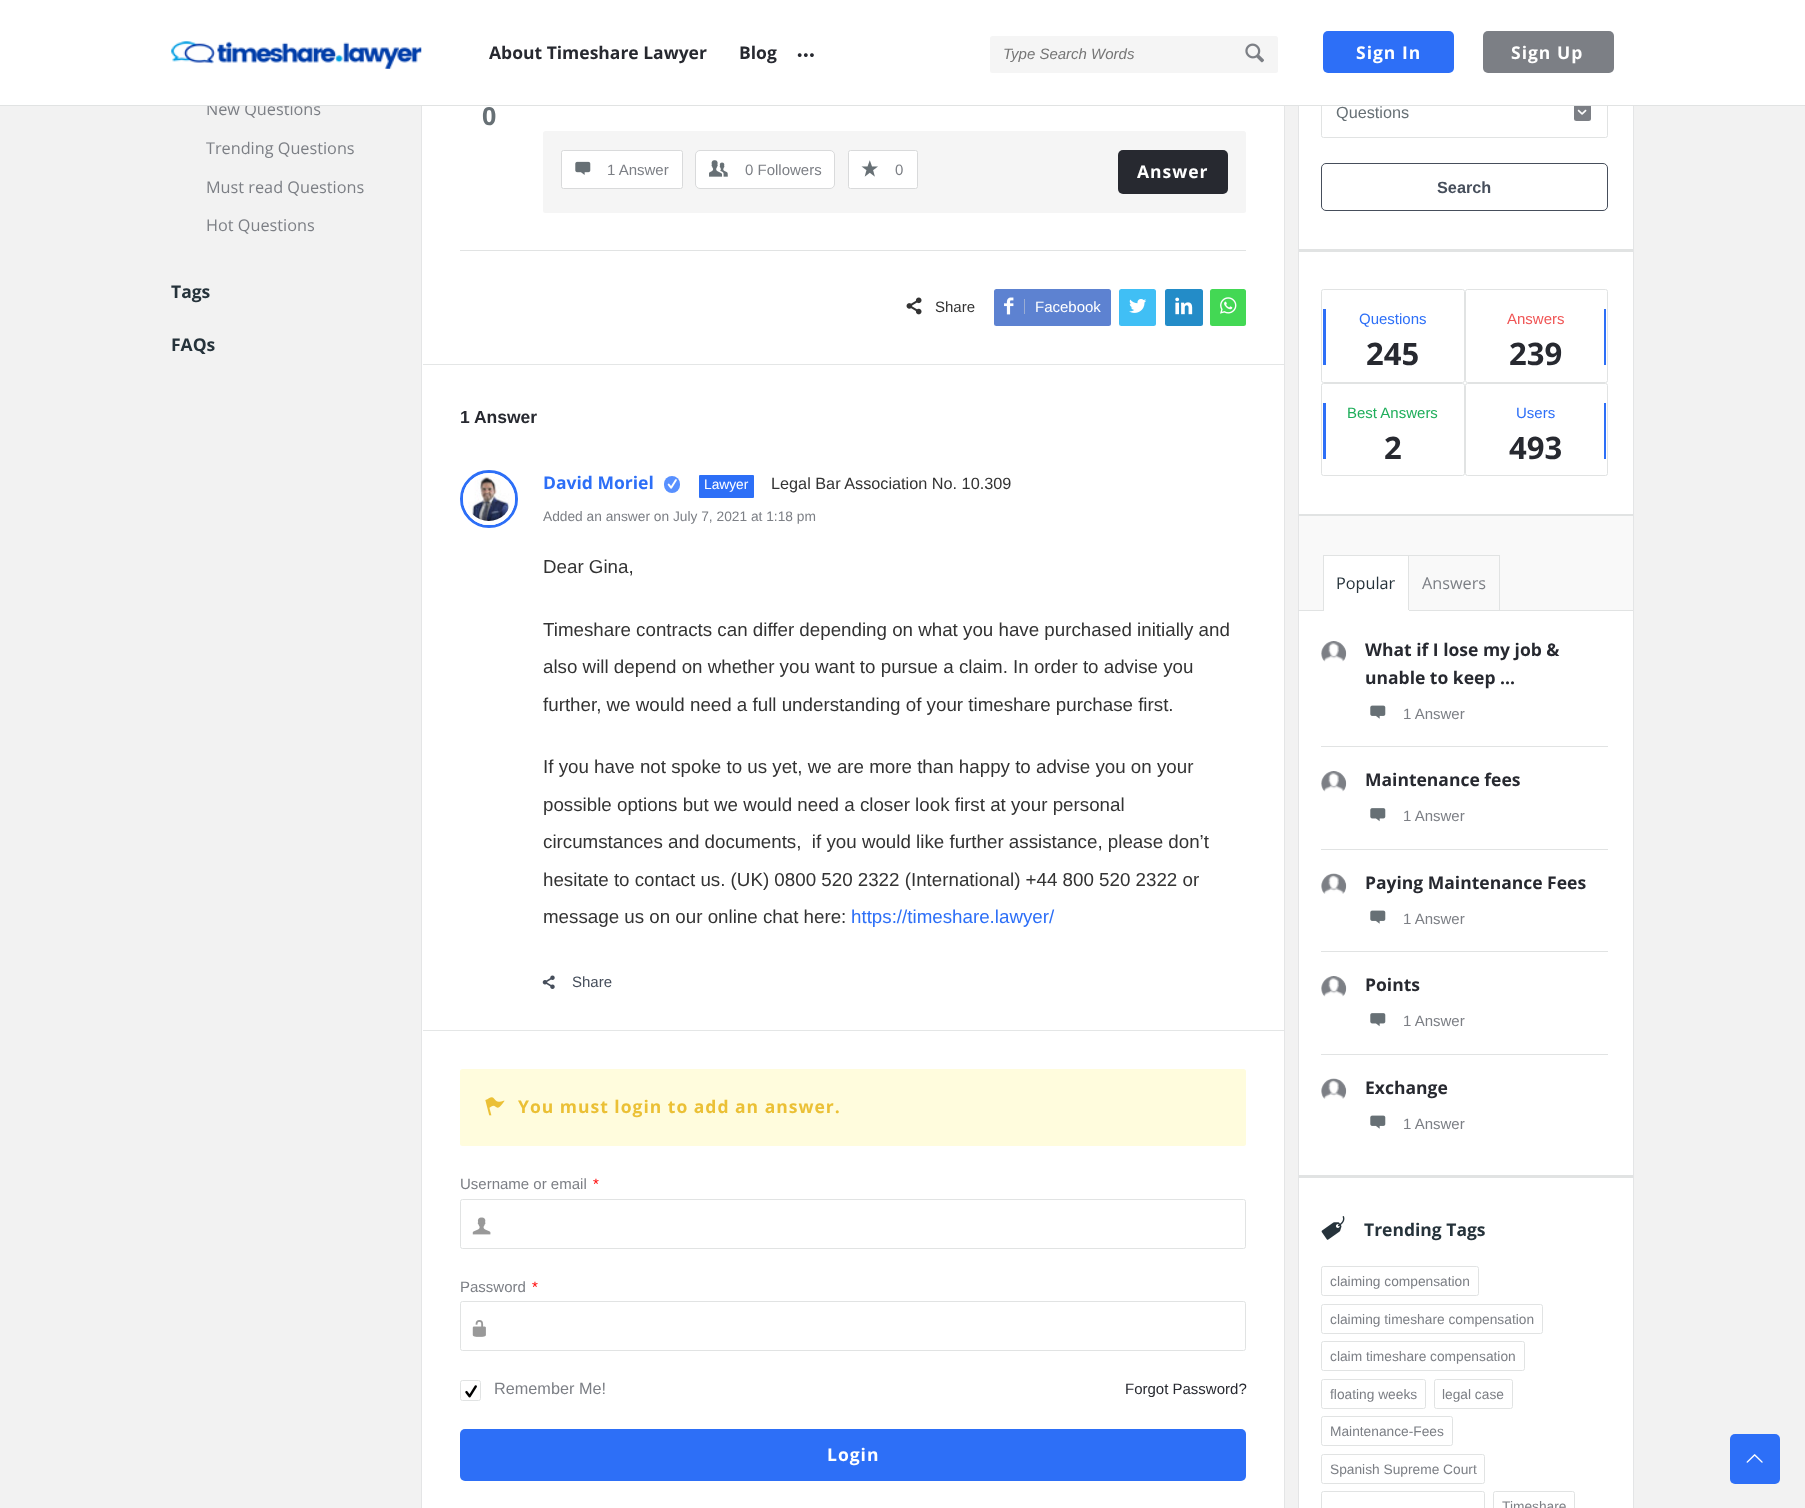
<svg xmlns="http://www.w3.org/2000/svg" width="1805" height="1508">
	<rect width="100%" height="100%" fill="#F2F2F2" />
	<text x="206" y="115" font-family="Open Sans" font-size="16.25" fill="#7C7F85">New Questions</text>
	<rect x="1299" y="106" width="334" height="1402" fill="#FFFFFF" />
	<rect x="1321.5" y="88.5" width="286" height="49" rx="2" fill="none" stroke="#E1E3E3" />
	<rect x="1574" y="104" width="17" height="17" rx="2.5" fill="#7C7F85" />
	<rect x="0" y="0" width="1805" height="105" fill="#FFFFFF" />
	<rect x="0" y="105" width="1805" height="1" fill="#E1E3E3" />
	<image x="171" y="41" width="251" height="28" href="assets/img1.png" />
	<g font-family="Open Sans" font-size="17.5" font-weight="700" fill="#272930">
		<text x="489" y="59">About Timeshare Lawyer</text>
		<text x="739" y="59">Blog</text>
	</g>
	<image x="797" y="53" width="17" height="4" href="assets/img2.png" />
	<rect x="990" y="36" width="288" height="37" rx="2.5" fill="#F5F5F5" />
	<text x="1003" y="59" font-family="Liberation Sans" font-size="15" font-style="italic" fill="#757575">Type Search Words</text>
	<image x="1245" y="43" width="19" height="20" href="assets/img3.png" />
	<rect x="1323" y="31" width="131" height="42" rx="5" fill="#2D6FF7" />
	<text x="1356" y="59" font-family="Open Sans" font-size="17.5" font-weight="700" letter-spacing="1" fill="#FFFFFF">Sign In</text>
	<rect x="1483" y="31" width="131" height="42" rx="5" fill="#7C7F85" />
	<text x="1511" y="59" font-family="Open Sans" font-size="17.5" font-weight="700" letter-spacing="1" fill="#FFFFFF">Sign Up</text>
	<g font-family="Open Sans" font-size="16.25" fill="#7C7F85">
		<text x="206" y="154">Trending Questions</text>
		<text x="206" y="193">Must read Questions</text>
		<text x="206" y="231">Hot Questions</text>
	</g>
	<g font-family="Open Sans" font-size="17.5" font-weight="700" fill="#26333B">
		<text x="171" y="298">Tags</text>
		<text x="171" y="351">FAQs</text>
	</g>
	<rect x="422" y="106" width="862" height="1402" fill="#FFFFFF" />
	<rect x="1284" y="106" width="1" height="1402" fill="#E4E5E6" />
	<rect x="421" y="106" width="1" height="1402" fill="#E4E5E6" />
	<text x="482" y="125" font-family="Open Sans" font-size="25" font-weight="700" fill="#677075">0</text>
	<rect x="543" y="131" width="703" height="82" rx="2.5" fill="#F5F5F5" />
	<rect x="561.5" y="150.5" width="121" height="38" rx="2" fill="#FFFFFF" stroke="#D9DADB" />
	<image x="575" y="161" width="16" height="14" href="assets/img4.png" />
	<text x="607" y="175" font-family="Liberation Sans" font-size="15" fill="#7C7F85">1 Answer</text>
	<rect x="695.5" y="150.5" width="139" height="38" rx="4.5" fill="#FFFFFF" stroke="#D9DADB" />
	<image x="709" y="160" width="19" height="17" href="assets/img5.png" />
	<text x="745" y="175" font-family="Liberation Sans" font-size="15" fill="#7C7F85">0 Followers</text>
	<rect x="848.5" y="150.5" width="69" height="38" rx="2" fill="#FFFFFF" stroke="#D9DADB" />
	<image x="861" y="160" width="17" height="17" href="assets/img6.png" />
	<text x="895" y="175" font-family="Liberation Sans" font-size="15" fill="#7C7F85">0</text>
	<rect x="1118" y="150" width="110" height="44" rx="5" fill="#272930" />
	<text x="1137" y="178" font-family="Open Sans" font-size="17.5" font-weight="700" letter-spacing="1" fill="#FFFFFF">Answer</text>
	<rect x="460" y="250" width="786" height="1" fill="#E1E3E3" />
	<image x="906" y="297" width="16" height="18" href="assets/img7.png" />
	<text x="935" y="312" font-family="Liberation Sans" font-size="15" fill="#333333">Share</text>
	<rect x="994" y="289" width="117" height="37" rx="2.5" fill="#5D82D1" />
	<rect x="1024" y="299" width="1" height="15" fill="#9AADD4" />
	<image x="1004" y="297" width="10" height="18" href="assets/img8.png" />
	<text x="1035" y="312" font-family="Liberation Sans" font-size="15" fill="#FFFFFF">Facebook</text>
	<rect x="1119" y="289" width="37" height="37" rx="2.5" fill="#40BFF5" />
	<image x="1129" y="299" width="18" height="14" href="assets/img9.png" />
	<rect x="1165" y="289" width="38" height="37" rx="2.5" fill="#238CC8" />
	<image x="1175" y="297" width="18" height="18" href="assets/img10.png" />
	<rect x="1210" y="289" width="36" height="37" rx="2.5" fill="#43D854" />
	<image x="1220" y="297" width="17" height="17" href="assets/img11.png" />
	<rect x="423" y="364" width="861" height="1" fill="#E4E6E6" />
	<rect x="423" y="1030" width="861" height="1" fill="#E4E6E6" />
	<text x="460" y="423" font-family="Liberation Sans" font-size="17.5" font-weight="700" fill="#272930">1 Answer</text>
	<circle cx="489" cy="499" r="27.5" fill="none" stroke="#2D6FF7" stroke-width="3" />
	<circle cx="489" cy="499" r="24" fill="none" stroke="#FFFFFF" stroke-width="4" />
	<image x="468" y="476" width="42" height="45" href="assets/img12.png" />
	<text x="543" y="489" font-family="Open Sans" font-size="17.5" font-weight="700" fill="#2D6FF7">David Moriel</text>
	<rect x="664" y="476" width="16" height="17" rx="8" fill="#5890FF" />
	<image x="667" y="479" width="10" height="10" href="assets/img13.png" />
	<rect x="699" y="475" width="55" height="23" rx="1" fill="#2D6FF7" />
	<text x="704" y="489" font-family="Liberation Sans" font-size="13.75" fill="#FFFFFF">Lawyer</text>
	<text x="771" y="489" font-family="Liberation Sans" font-size="16.25" fill="#333333">Legal Bar Association No. 10.309</text>
	<text x="543" y="521" font-family="Liberation Sans" font-size="13.75" fill="#7C7F85">Added an answer on July 7, 2021 at 1:18 pm</text>
	<g font-family="Liberation Sans" font-size="18.75" fill="#333333">
		<text x="543" y="573">Dear Gina,</text>
		<text x="543" y="636">Timeshare contracts can differ depending on what you have purchased initially and</text>
		<text x="543" y="673">also will depend on whether you want to pursue a claim. In order to advise you</text>
		<text x="543" y="711">further, we would need a full understanding of your timeshare purchase first.</text>
		<text x="543" y="773">If you have not spoke to us yet, we are more than happy to advise you on your</text>
		<text x="543" y="811">possible options but we would need a closer look first at your personal</text>
		<text x="543" y="848" xml:space="preserve">circumstances and documents,  if you would like further assistance, please don’t</text>
		<text x="543" y="886">hesitate to contact us. (UK) 0800 520 2322 (International) +44 800 520 2322 or</text>
		<text x="543" y="923">message us on our online chat here:</text>
	</g>
	<text x="851" y="923" font-family="Liberation Sans" font-size="18.75" fill="#2D6FF7">https://timeshare.lawyer/</text>
	<image x="542" y="975" width="13" height="14" href="assets/img14.png" />
	<text x="572" y="987" font-family="Liberation Sans" font-size="15" fill="#464E5B">Share</text>
	<rect x="460" y="1069" width="786" height="77" rx="2.5" fill="#FFFCDD" />
	<image x="485" y="1097" width="20" height="19" href="assets/img15.png" />
	<text x="518" y="1113" font-family="Open Sans" font-size="17.5" font-weight="700" letter-spacing="1" fill="#EBC035">You must login to add an answer.</text>
	<text x="460" y="1189" font-family="Liberation Sans" font-size="15" fill="#7C7F85">Username or email</text>
	<text x="593" y="1189" font-family="Liberation Sans" font-size="15" fill="#FF0000">*</text>
	<rect x="460.5" y="1199.5" width="785" height="49" rx="2" fill="none" stroke="#E1E3E3" />
	<image x="472" y="1217" width="19" height="18" href="assets/img16.png" />
	<text x="460" y="1292" font-family="Liberation Sans" font-size="15" fill="#7C7F85">Password</text>
	<text x="532" y="1292" font-family="Liberation Sans" font-size="15" fill="#FF0000">*</text>
	<rect x="460.5" y="1301.5" width="785" height="49" rx="2" fill="none" stroke="#E1E3E3" />
	<image x="472" y="1320" width="14" height="17" href="assets/img17.png" />
	<rect x="460.5" y="1380.5" width="20" height="20" rx="2" fill="none" stroke="#E1E3E3" />
	<image x="465" y="1385" width="12" height="13" href="assets/img18.png" />
	<text x="494" y="1394" font-family="Liberation Sans" font-size="16.25" fill="#7C7F85">Remember Me!</text>
	<text x="1125" y="1394" font-family="Liberation Sans" font-size="15" fill="#272930">Forgot Password?</text>
	<rect x="460" y="1429" width="786" height="52" rx="5" fill="#2D6FF7" />
	<text x="827" y="1461" font-family="Open Sans" font-size="17.5" font-weight="700" letter-spacing="1" fill="#FFFFFF">Login</text>
	<rect x="1633" y="106" width="1" height="1402" fill="#E4E5E6" />
	<rect x="1298" y="106" width="1" height="1402" fill="#E4E5E6" />
	<rect x="1299" y="249" width="334" height="3" fill="#E1E3E3" />
	<text x="1336" y="118" font-family="Liberation Sans" font-size="16.25" fill="#677075">Questions</text>
	<image x="1577" y="109" width="10" height="6" href="assets/img19.png" />
	<rect x="1321.5" y="163.5" width="286" height="47" rx="4.5" fill="none" stroke="#464E5B" />
	<text x="1437" y="193" font-family="Liberation Sans" font-size="16.25" font-weight="700" fill="#464E5B">Search</text>
	<rect x="1299" y="514" width="334" height="2" fill="#E1E3E3" />
	<rect x="1321.5" y="289.5" width="143" height="93" rx="2" fill="none" stroke="#E1E3E3" />
	<rect x="1323" y="309" width="3" height="56" fill="#2D6FF7" />
	<text x="1359" y="324" font-family="Liberation Sans" font-size="15" fill="#2D6FF7">Questions</text>
	<text x="1366" y="365" font-family="Open Sans" font-size="31" font-weight="700" fill="#272930">245</text>
	<rect x="1465.5" y="289.5" width="142" height="93" rx="2" fill="none" stroke="#E1E3E3" />
	<text x="1507" y="324" font-family="Liberation Sans" font-size="15" fill="#F05555">Answers</text>
	<text x="1509" y="365" font-family="Open Sans" font-size="31" font-weight="700" fill="#272930">239</text>
	<rect x="1604" y="309" width="2" height="56" fill="#2D6FF7" />
	<rect x="1321.5" y="383.5" width="143" height="92" rx="2" fill="none" stroke="#E1E3E3" />
	<rect x="1323" y="403" width="3" height="56" fill="#2D6FF7" />
	<text x="1347" y="418" font-family="Liberation Sans" font-size="15" fill="#1FAE5B">Best Answers</text>
	<text x="1384" y="459" font-family="Open Sans" font-size="31" font-weight="700" fill="#272930">2</text>
	<rect x="1465.5" y="383.5" width="142" height="92" rx="2" fill="none" stroke="#E1E3E3" />
	<text x="1516" y="418" font-family="Liberation Sans" font-size="15" fill="#2D6FF7">Users</text>
	<text x="1509" y="459" font-family="Open Sans" font-size="31" font-weight="700" fill="#272930">493</text>
	<rect x="1604" y="403" width="2" height="56" fill="#2D6FF7" />
	<rect x="1299" y="516" width="334" height="94" fill="#F9F9F9" />
	<rect x="1299" y="1175" width="334" height="3" fill="#E1E3E3" />
	<rect x="1298" y="610" width="335" height="1" fill="#E1E3E3" />
	<rect x="1323.5" y="555.5" width="85" height="55" fill="#FFFFFF" stroke="#E1E3E3" />
	<text x="1336" y="589" font-family="Open Sans" font-size="16.25" fill="#26333B">Popular</text>
	<rect x="1324" y="610" width="85" height="1" fill="#FFFFFF" />
	<rect x="1409" y="555" width="91" height="1" fill="#E1E3E3" />
	<rect x="1499" y="555" width="1" height="56" fill="#E1E3E3" />
	<text x="1422" y="589" font-family="Open Sans" font-size="16.25" fill="#7C7F85">Answers</text>
	<rect x="1321" y="746" width="287" height="1" fill="#E1E3E3" />
	<image x="1321" y="641" width="26" height="21" href="assets/img20.png" />
	<g font-family="Open Sans" font-size="17.5" font-weight="700" fill="#272930">
		<text x="1365" y="656">What if I lose my job &amp;</text>
		<text x="1365" y="684">unable to keep ...</text>
	</g>
	<image x="1370" y="705" width="16" height="14" href="assets/img21.png" />
	<text x="1403" y="719" font-family="Liberation Sans" font-size="15" fill="#7C7F85">1 Answer</text>
	<rect x="1321" y="849" width="287" height="1" fill="#E1E3E3" />
	<image x="1321" y="771" width="26" height="21" href="assets/img20.png" />
	<text x="1365" y="786" font-family="Open Sans" font-size="17.5" font-weight="700" fill="#272930">Maintenance fees</text>
	<image x="1370" y="808" width="16" height="14" href="assets/img22.png" />
	<text x="1403" y="821" font-family="Liberation Sans" font-size="15" fill="#7C7F85">1 Answer</text>
	<rect x="1321" y="951" width="287" height="1" fill="#E1E3E3" />
	<image x="1321" y="873" width="26" height="21" href="assets/img23.png" />
	<text x="1365" y="889" font-family="Open Sans" font-size="17.5" font-weight="700" fill="#272930">Paying Maintenance Fees</text>
	<image x="1370" y="910" width="16" height="14" href="assets/img21.png" />
	<text x="1403" y="924" font-family="Liberation Sans" font-size="15" fill="#7C7F85">1 Answer</text>
	<rect x="1321" y="1054" width="287" height="1" fill="#E1E3E3" />
	<image x="1321" y="976" width="26" height="21" href="assets/img24.png" />
	<text x="1365" y="991" font-family="Open Sans" font-size="17.5" font-weight="700" fill="#272930">Points</text>
	<image x="1370" y="1013" width="16" height="14" href="assets/img22.png" />
	<text x="1403" y="1026" font-family="Liberation Sans" font-size="15" fill="#7C7F85">1 Answer</text>
	<image x="1321" y="1078" width="26" height="21" href="assets/img25.png" />
	<text x="1365" y="1094" font-family="Open Sans" font-size="17.5" font-weight="700" fill="#272930">Exchange</text>
	<image x="1370" y="1115" width="16" height="14" href="assets/img21.png" />
	<text x="1403" y="1129" font-family="Liberation Sans" font-size="15" fill="#7C7F85">1 Answer</text>
	<image x="1321" y="1216" width="24" height="24" href="assets/img26.png" />
	<text x="1364" y="1236" font-family="Open Sans" font-size="17.5" font-weight="700" fill="#26333B">Trending Tags</text>
	<rect x="1321.5" y="1266.5" width="157" height="29" rx="2" fill="none" stroke="#E1E3E3" />
	<text x="1330" y="1286" font-family="Liberation Sans" font-size="13.75" fill="#7C7F85">claiming compensation</text>
	<rect x="1321.5" y="1304.5" width="221" height="29" rx="2" fill="none" stroke="#E1E3E3" />
	<text x="1330" y="1324" font-family="Liberation Sans" font-size="13.75" fill="#7C7F85">claiming timeshare compensation</text>
	<rect x="1321.5" y="1341.5" width="203" height="29" rx="2" fill="none" stroke="#E1E3E3" />
	<text x="1330" y="1361" font-family="Liberation Sans" font-size="13.75" fill="#7C7F85">claim timeshare compensation</text>
	<rect x="1321.5" y="1379.5" width="104" height="29" rx="2" fill="none" stroke="#E1E3E3" />
	<text x="1330" y="1399" font-family="Liberation Sans" font-size="13.75" fill="#7C7F85">floating weeks</text>
	<rect x="1434.5" y="1379.5" width="78" height="29" rx="2" fill="none" stroke="#E1E3E3" />
	<text x="1442" y="1399" font-family="Liberation Sans" font-size="13.75" fill="#7C7F85">legal case</text>
	<rect x="1321.5" y="1416.5" width="131" height="29" rx="2" fill="none" stroke="#E1E3E3" />
	<text x="1330" y="1436" font-family="Liberation Sans" font-size="13.75" fill="#7C7F85">Maintenance-Fees</text>
	<rect x="1321.5" y="1454.5" width="163" height="29" rx="2" fill="none" stroke="#E1E3E3" />
	<text x="1330" y="1474" font-family="Liberation Sans" font-size="13.75" fill="#7C7F85">Spanish Supreme Court</text>
	<rect x="1321.5" y="1491.5" width="163" height="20" rx="2" fill="none" stroke="#E1E3E3" />
	<rect x="1493.5" y="1491.5" width="81" height="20" rx="2" fill="none" stroke="#E1E3E3" />
	<text x="1502" y="1511" font-family="Liberation Sans" font-size="13.75" fill="#7C7F85">Timeshare</text>
	<rect x="1730" y="1434" width="50" height="50" rx="5" fill="#2D6FF7" />
	<image x="1746" y="1454" width="17" height="9" href="assets/img27.png" />
</svg>
